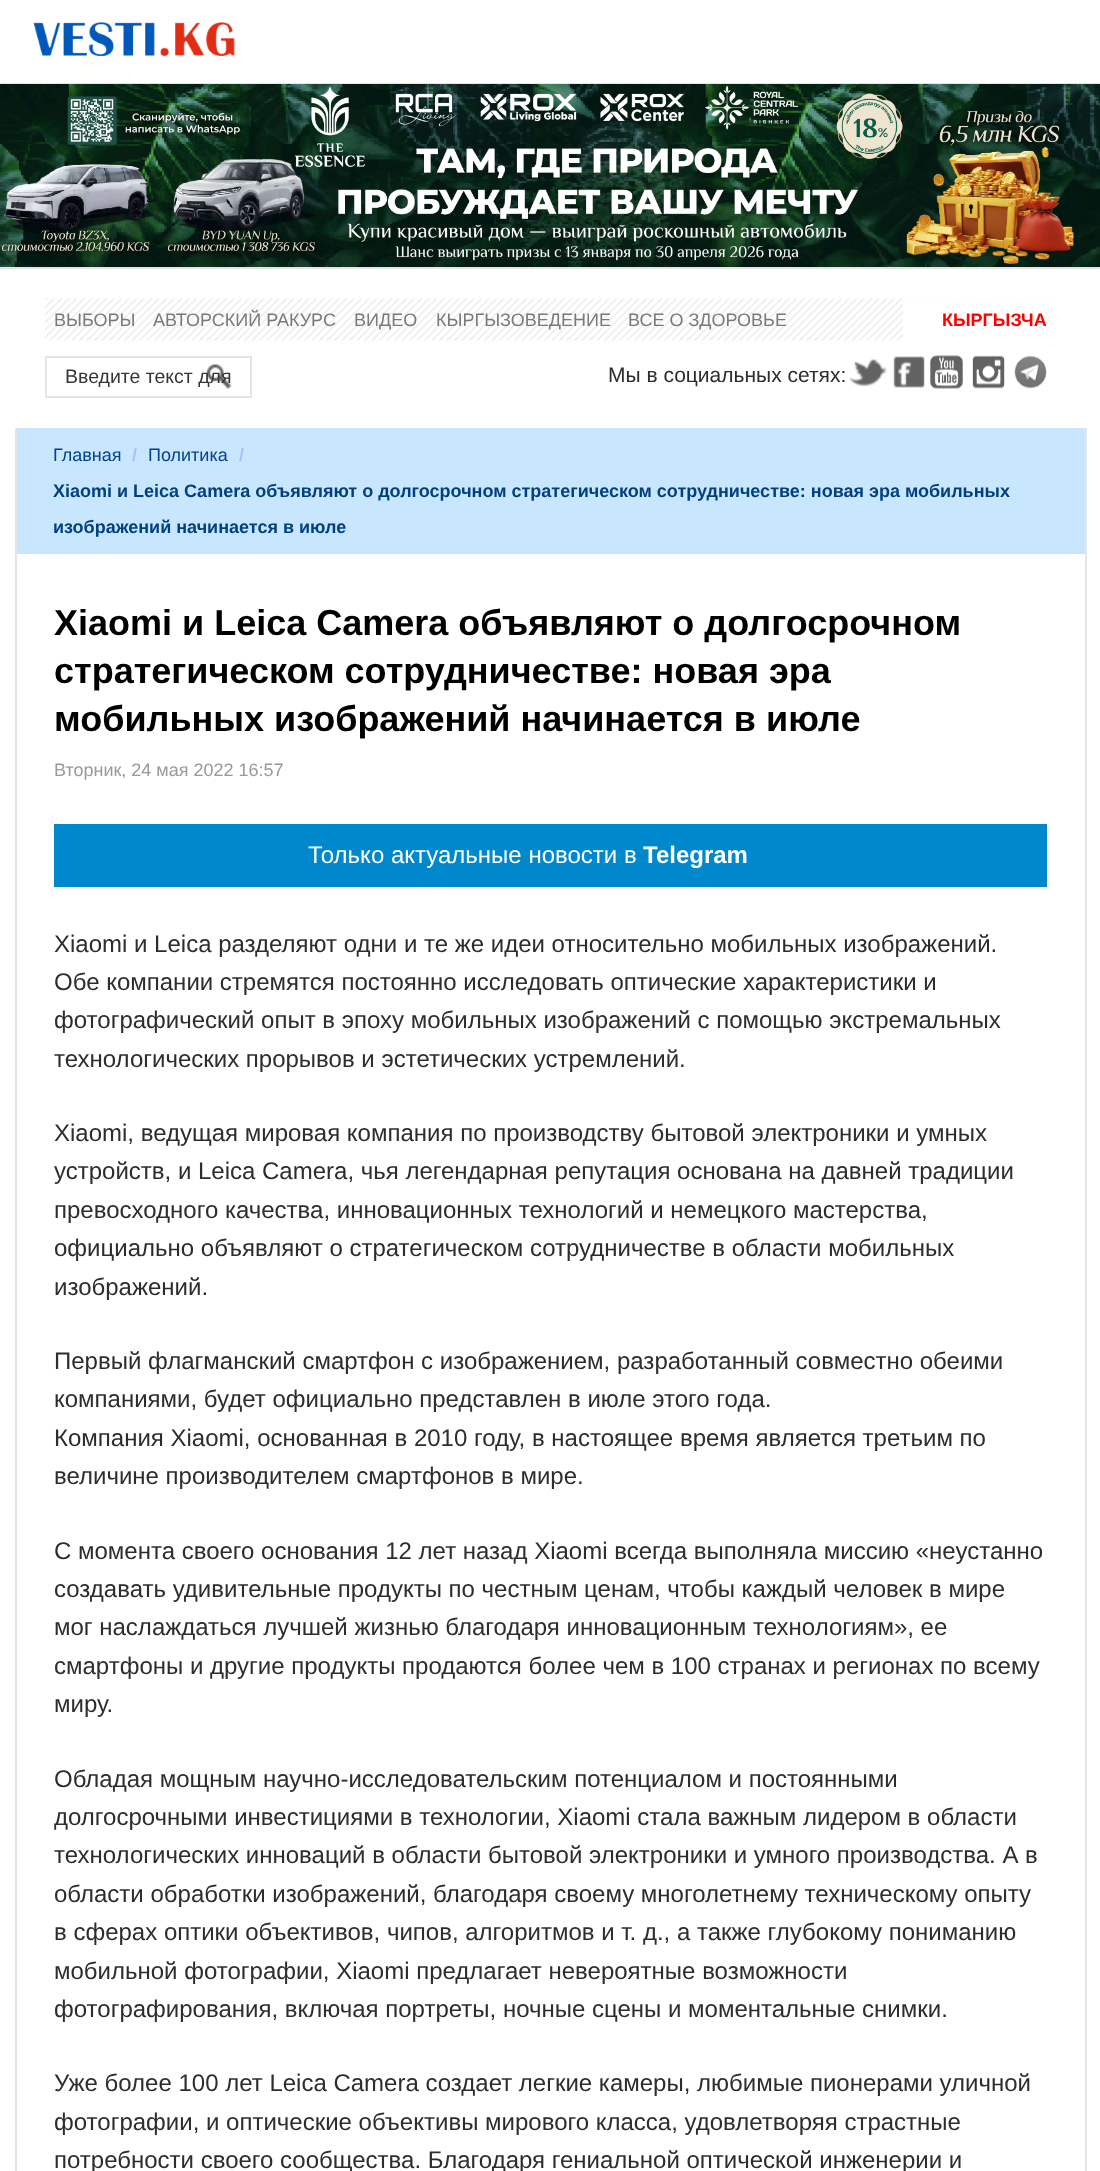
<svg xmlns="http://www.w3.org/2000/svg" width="1100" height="2171">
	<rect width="100%" height="100%" fill="#FFFFFF" />
	<image x="33" y="22" width="202" height="35" href="assets/img1.png" />
	<rect x="0" y="83" width="1100" height="1" fill="#E5E5E5" />
	<rect x="0" y="267" width="1100" height="2" fill="#E5E5E5" />
	<image x="0" y="84" width="1100" height="183" href="assets/img2.png" />
	<image x="45" y="298" width="1011" height="43" href="assets/img3.png" />
	<g font-family="Liberation Sans" font-size="18" fill="#7A7A7A">
		<text x="54" y="326">ВЫБОРЫ</text>
		<text x="153" y="326">АВТОРСКИЙ РАКУРС</text>
		<text x="354" y="326">ВИДЕО</text>
		<text x="436" y="326">КЫРГЫЗОВЕДЕНИЕ</text>
		<text x="628" y="326">ВСЕ О ЗДОРОВЬЕ</text>
	</g>
	<rect x="903" y="299" width="153" height="42" fill="#FFFFFF" />
	<text x="942" y="326" font-family="Liberation Sans" font-size="18" font-weight="700" fill="#FF0000">КЫРГЫЗЧА</text>
	<image x="206" y="364" width="26" height="25" href="assets/img4.png" />
	<rect x="46" y="357" width="205" height="40" fill="none" stroke="#E5E5E5" stroke-width="2" />
	<text x="65" y="383" font-family="Liberation Sans" font-size="19.5" fill="#363636">Введите текст для</text>
	<text x="608" y="382" font-family="Liberation Sans" font-size="21" fill="#2D2D2D">Мы в социальных сетях:</text>
	<image x="849" y="359" width="38" height="28" href="assets/img5.png" />
	<image x="893" y="356" width="32" height="32" href="assets/img6.png" />
	<image x="930" y="355" width="33" height="34" href="assets/img7.png" />
	<image x="972" y="355" width="33" height="34" href="assets/img8.png" />
	<image x="1014" y="355" width="33" height="34" href="assets/img9.png" />
	<rect x="1085" y="428" width="2" height="1743" fill="#E5E5E5" />
	<rect x="15" y="428" width="2" height="1743" fill="#E5E5E5" />
	<rect x="17" y="428" width="1068" height="126" fill="#C9E6FF" />
	<text x="53" y="461" font-family="Liberation Sans" font-size="18" fill="#00428C">Главная</text>
	<text x="132" y="461" font-family="Liberation Sans" font-size="18" font-weight="700" fill="#ABBDFF">/</text>
	<text x="148" y="461" font-family="Liberation Sans" font-size="18" fill="#00428C">Политика</text>
	<text x="239" y="461" font-family="Liberation Sans" font-size="18" font-weight="700" fill="#ABBDFF">/</text>
	<g font-family="Liberation Sans" font-size="18" font-weight="700" fill="#00407E">
		<text x="53" y="497">Xiaomi и Leica Camera объявляют о долгосрочном стратегическом сотрудничестве: новая эра мобильных</text>
		<text x="53" y="533">изображений начинается в июле</text>
	</g>
	<g font-family="Liberation Sans" font-size="36" font-weight="700" fill="#000000">
		<text x="54" y="635">Xiaomi и Leica Camera объявляют о долгосрочном</text>
		<text x="54" y="683">стратегическом сотрудничестве: новая эра</text>
		<text x="54" y="731">мобильных изображений начинается в июле</text>
	</g>
	<text x="54" y="776" font-family="Liberation Sans" font-size="18" fill="#999999">Вторник, 24 мая 2022 16:57</text>
	<rect x="54" y="824" width="993" height="63" fill="#0088CC" />
	<text x="308" y="863" font-family="Liberation Sans" font-size="24" fill="#FFFFFF">Только актуальные новости в</text>
	<text x="643" y="863" font-family="Liberation Sans" font-size="24" font-weight="700" fill="#FFFFFF">Telegram</text>
	<g font-family="Liberation Sans" font-size="24" fill="#2D2D2D">
		<text x="54" y="952">Xiaomi и Leica разделяют одни и те же идеи относительно мобильных изображений.</text>
		<text x="54" y="990">Обе компании стремятся постоянно исследовать оптические характеристики и</text>
		<text x="54" y="1028">фотографический опыт в эпоху мобильных изображений с помощью экстремальных</text>
		<text x="54" y="1067">технологических прорывов и эстетических устремлений.</text>
		<text x="54" y="1141">Xiaomi, ведущая мировая компания по производству бытовой электроники и умных</text>
		<text x="54" y="1179">устройств, и Leica Camera, чья легендарная репутация основана на давней традиции</text>
		<text x="54" y="1218">превосходного качества, инновационных технологий и немецкого мастерства,</text>
		<text x="54" y="1256">официально объявляют о стратегическом сотрудничестве в области мобильных</text>
		<text x="54" y="1295">изображений.</text>
		<text x="54" y="1369">Первый флагманский смартфон с изображением, разработанный совместно обеими</text>
		<text x="54" y="1407">компаниями, будет официально представлен в июле этого года.</text>
		<text x="54" y="1446">Компания Xiaomi, основанная в 2010 году, в настоящее время является третьим по</text>
		<text x="54" y="1484">величине производителем смартфонов в мире.</text>
		<text x="54" y="1559">С момента своего основания 12 лет назад Xiaomi всегда выполняла миссию «неустанно</text>
		<text x="54" y="1597">создавать удивительные продукты по честным ценам, чтобы каждый человек в мире</text>
		<text x="54" y="1635">мог наслаждаться лучшей жизнью благодаря инновационным технологиям», ее</text>
		<text x="54" y="1674">смартфоны и другие продукты продаются более чем в 100 странах и регионах по всему</text>
		<text x="54" y="1712">миру.</text>
		<text x="54" y="1787">Обладая мощным научно-исследовательским потенциалом и постоянными</text>
		<text x="54" y="1825">долгосрочными инвестициями в технологии, Xiaomi стала важным лидером в области</text>
		<text x="54" y="1863">технологических инноваций в области бытовой электроники и умного производства. А в</text>
		<text x="54" y="1902">области обработки изображений, благодаря своему многолетнему техническому опыту</text>
		<text x="54" y="1940">в сферах оптики объективов, чипов, алгоритмов и т. д., а также глубокому пониманию</text>
		<text x="54" y="1979">мобильной фотографии, Xiaomi предлагает невероятные возможности</text>
		<text x="54" y="2017">фотографирования, включая портреты, ночные сцены и моментальные снимки.</text>
		<text x="54" y="2091">Уже более 100 лет Leica Camera создает легкие камеры, любимые пионерами уличной</text>
		<text x="54" y="2130">фотографии, и оптические объективы мирового класса, удовлетворяя страстные</text>
		<text x="54" y="2168">потребности своего сообщества. Благодаря гениальной оптической инженерии и</text>
	</g>
</svg>
